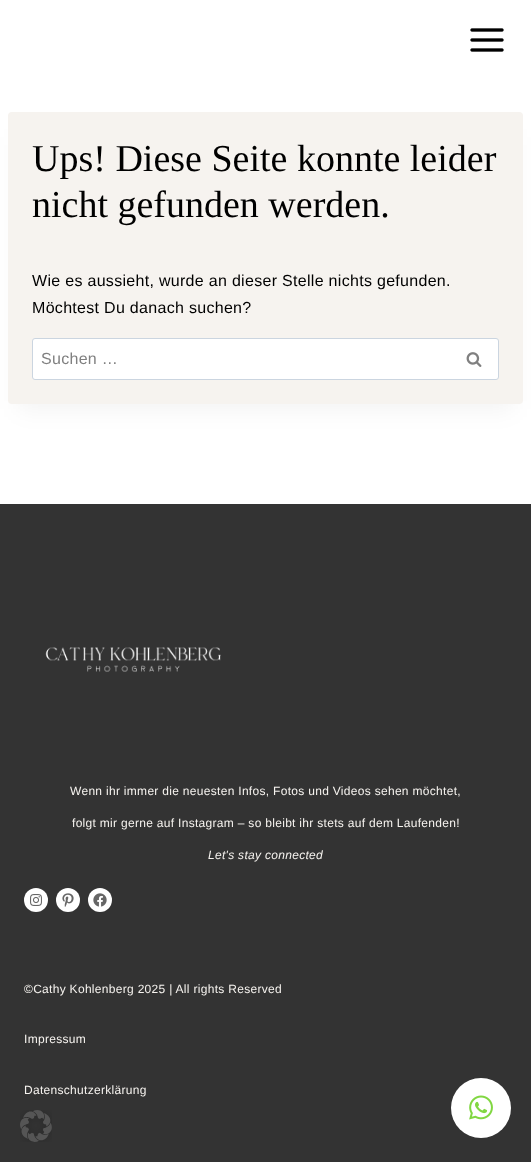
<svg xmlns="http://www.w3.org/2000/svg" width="531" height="1162">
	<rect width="100%" height="100%" fill="#FFFFFF" />
	<image x="470" y="28" width="34" height="24" href="assets/img1.png" />
	<rect x="18" y="137" width="495" height="272" fill="#000000" fill-opacity="0.05" filter="blur(12.5px)" />
	<rect x="8" y="112" width="515" height="292" rx="4" fill="#F6F3EF" />
	<g font-family="Liberation Serif" font-size="38" fill="#000000">
		<text x="32" y="171">Ups! Diese Seite konnte leider</text>
		<text x="32" y="217">nicht gefunden werden.</text>
	</g>
	<g font-family="Liberation Sans" font-size="16" letter-spacing="0.3" fill="#000000">
		<text x="32" y="286">Wie es aussieht, wurde an dieser Stelle nichts gefunden.</text>
		<text x="32" y="313">Möchtest Du danach suchen?</text>
	</g>
	<rect x="32.5" y="338.5" width="466" height="41" rx="2.5" fill="#FFFFFF" stroke="#CBD5E0" />
	<text x="41" y="364" font-family="Liberation Sans" font-size="16" letter-spacing="0.3" fill="#808080">Suchen …</text>
	<image x="466" y="352" width="16" height="15" href="assets/img2.png" />
	<rect x="0" y="504" width="531" height="658" fill="#333333" />
	<image x="45" y="647" width="176" height="25" href="assets/img3.png" />
	<g font-family="Liberation Sans" font-size="12" letter-spacing="0.3" fill="#F6F3EF">
		<text x="70" y="795">Wenn ihr immer die neuesten Infos, Fotos und Videos sehen möchtet,</text>
		<text x="72" y="827">folgt mir gerne auf Instagram – so bleibt ihr stets auf dem Laufenden!</text>
	</g>
	<text x="208" y="859" font-family="Liberation Sans" font-size="12" font-style="italic" letter-spacing="0.3" fill="#F6F3EF">Let's stay connected</text>
	<circle cx="36" cy="900" r="12" fill="#FFFFFF" />
	<image x="30" y="894" width="12" height="12" href="assets/img4.png" />
	<circle cx="68" cy="900" r="12" fill="#FFFFFF" />
	<image x="62" y="893" width="12" height="14" href="assets/img5.png" />
	<circle cx="100" cy="900" r="12" fill="#FFFFFF" />
	<image x="93" y="893" width="14" height="14" href="assets/img6.png" />
	<g font-family="Liberation Sans" font-size="12" letter-spacing="0.3" fill="#F6F3EF">
		<text x="24" y="993">©Cathy Kohlenberg 2025 | All rights Reserved</text>
		<text x="24" y="1043">Impressum</text>
		<text x="24" y="1094">Datenschutzerklärung</text>
	</g>
	<image x="20" y="1110" width="32" height="32" href="assets/img7.png" />
	<circle cx="481" cy="1108" r="30" fill="#FFFFFF" />
	<image x="469" y="1095" width="24" height="25" href="assets/img8.png" />
</svg>
